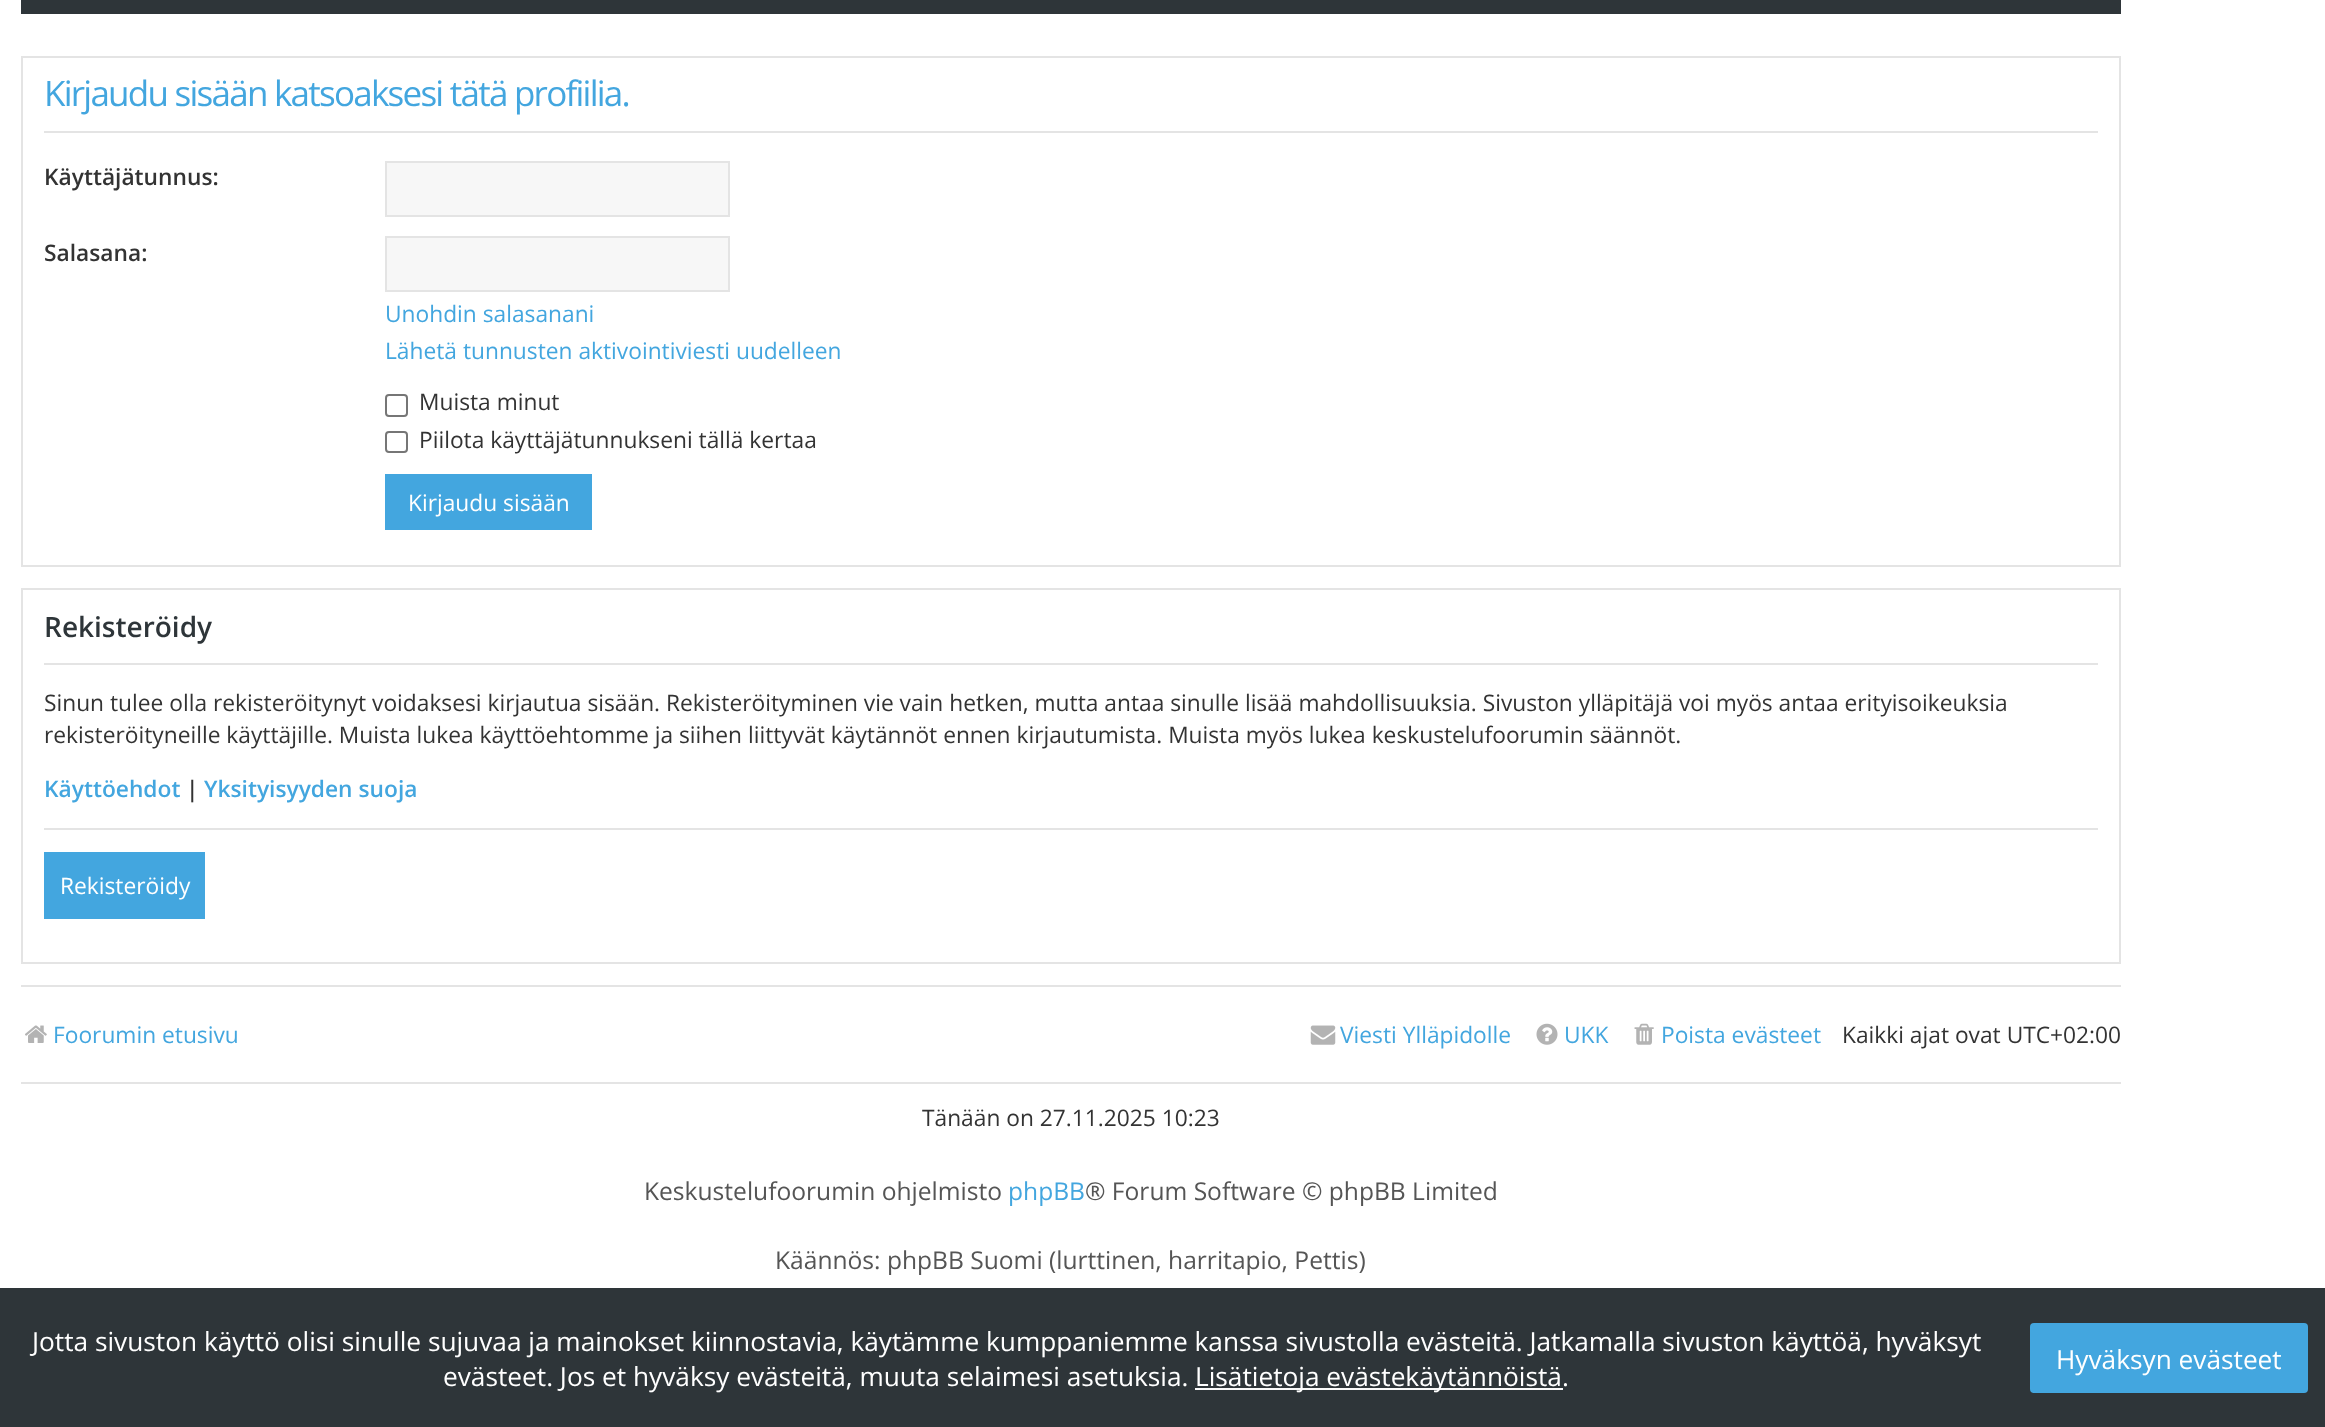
<svg xmlns="http://www.w3.org/2000/svg" width="2325" height="1427">
	<rect width="100%" height="100%" fill="#FFFFFF" />
	<rect x="21" y="0" width="2100" height="14" fill="#2E3539" />
	<rect x="22" y="57" width="2098" height="509" fill="none" stroke="#E4E4E4" stroke-width="2" />
	<rect x="44" y="131" width="2054" height="2" fill="#E4E4E4" />
	<text x="44" y="106" font-family="Open Sans" font-size="35" letter-spacing="-1.75" fill="#43A6DF">Kirjaudu sisään katsoaksesi tätä profiilia.</text>
	<text x="44" y="185" font-family="Open Sans" font-size="22.75" font-weight="600" fill="#333333">Käyttäjätunnus:</text>
	<rect x="386" y="162" width="343" height="54" fill="#F7F7F7" stroke="#E4E4E4" stroke-width="2" />
	<text x="44" y="261" font-family="Open Sans" font-size="22.75" font-weight="600" fill="#333333">Salasana:</text>
	<rect x="386" y="237" width="343" height="54" fill="#F7F7F7" stroke="#E4E4E4" stroke-width="2" />
	<g font-family="Open Sans" font-size="22.75" fill="#43A6DF">
		<text x="385" y="322">Unohdin salasanani</text>
		<text x="385" y="359">Lähetä tunnusten aktivointiviesti uudelleen</text>
	</g>
	<rect x="386" y="395" width="21" height="21" rx="3" fill="none" stroke="#767676" stroke-width="2" />
	<text x="419" y="410" font-family="Open Sans" font-size="22.75" fill="#333333">Muista minut</text>
	<rect x="386" y="432" width="21" height="20" rx="3" fill="none" stroke="#767676" stroke-width="2" />
	<text x="419" y="448" font-family="Open Sans" font-size="22.75" fill="#333333">Piilota käyttäjätunnukseni tällä kertaa</text>
	<rect x="385" y="474" width="207" height="56" fill="#43A6DF" />
	<text x="408" y="511" font-family="Open Sans" font-size="22.75" fill="#FFFFFF">Kirjaudu sisään</text>
	<rect x="22" y="589" width="2098" height="374" fill="none" stroke="#E4E4E4" stroke-width="2" />
	<rect x="44" y="663" width="2054" height="2" fill="#E4E4E4" />
	<text x="44" y="637" font-family="Open Sans" font-size="28" font-weight="600" fill="#2E3539">Rekisteröidy</text>
	<g font-family="Open Sans" font-size="22.75" fill="#333333">
		<text x="44" y="711">Sinun tulee olla rekisteröitynyt voidaksesi kirjautua sisään. Rekisteröityminen vie vain hetken, mutta antaa sinulle lisää mahdollisuuksia. Sivuston ylläpitäjä voi myös antaa erityisoikeuksia</text>
		<text x="44" y="743">rekisteröityneille käyttäjille. Muista lukea käyttöehtomme ja siihen liittyvät käytännöt ennen kirjautumista. Muista myös lukea keskustelufoorumin säännöt.</text>
	</g>
	<text x="44" y="797" font-family="Open Sans" font-size="22.75" font-weight="600" fill="#43A6DF">Käyttöehdot</text>
	<text x="186" y="797" font-family="Open Sans" font-size="22.75" font-weight="600" fill="#333333">|</text>
	<text x="204" y="797" font-family="Open Sans" font-size="22.75" font-weight="600" fill="#43A6DF">Yksityisyyden suoja</text>
	<rect x="44" y="828" width="2054" height="2" fill="#E4E4E4" />
	<rect x="44" y="852" width="161" height="67" fill="#43A6DF" />
	<text x="60" y="894" font-family="Open Sans" font-size="22.75" fill="#FFFFFF">Rekisteröidy</text>
	<rect x="21" y="985" width="2100" height="2" fill="#E4E4E4" />
	<rect x="21" y="1082" width="2100" height="2" fill="#E4E4E4" />
	<image x="25" y="1025" width="22" height="18" href="assets/img1.png" />
	<text x="53" y="1043" font-family="Open Sans" font-size="22.75" fill="#43A6DF">Foorumin etusivu</text>
	<image x="1310" y="1025" width="26" height="20" href="assets/img2.png" />
	<text x="1340" y="1043" font-family="Open Sans" font-size="22.75" fill="#43A6DF">Viesti Ylläpidolle</text>
	<image x="1536" y="1023" width="22" height="22" href="assets/img3.png" />
	<text x="1564" y="1043" font-family="Open Sans" font-size="22.75" fill="#43A6DF">UKK</text>
	<image x="1634" y="1023" width="20" height="22" href="assets/img4.png" />
	<text x="1661" y="1043" font-family="Open Sans" font-size="22.75" fill="#43A6DF">Poista evästeet</text>
	<g font-family="Open Sans" font-size="22.75" fill="#333333">
		<text x="1842" y="1043">Kaikki ajat ovat UTC+02:00</text>
		<text x="922" y="1126">Tänään on 27.11.2025 10:23</text>
	</g>
	<text x="644" y="1200" font-family="Open Sans" font-size="24.6" fill="#555555">Keskustelufoorumin ohjelmisto</text>
	<text x="1008" y="1200" font-family="Open Sans" font-size="24.6" fill="#43A6DF">phpBB</text>
	<g font-family="Open Sans" font-size="24.6" fill="#555555">
		<text x="1085" y="1200">® Forum Software © phpBB Limited</text>
		<text x="775" y="1269">Käännös: phpBB Suomi (lurttinen, harritapio, Pettis)</text>
	</g>
	<rect x="0" y="1288" width="2325" height="139" fill="#2E3539" />
	<g font-family="Open Sans" font-size="26.25" fill="#FFFFFF">
		<text x="32" y="1351">Jotta sivuston käyttö olisi sinulle sujuvaa ja mainokset kiinnostavia, käytämme kumppaniemme kanssa sivustolla evästeitä. Jatkamalla sivuston käyttöä, hyväksyt</text>
		<text x="443" y="1386">evästeet. Jos et hyväksy evästeitä, muuta selaimesi asetuksia.</text>
	</g>
	<rect x="1195" y="1388" width="368" height="2" fill="#FAFAFA" />
	<g font-family="Open Sans" font-size="26.25" fill="#FFFFFF">
		<text x="1195" y="1386">Lisätietoja evästekäytännöistä</text>
		<text x="1562" y="1386">.</text>
	</g>
	<rect x="2030" y="1323" width="278" height="70" rx="4" fill="#43A6DF" />
	<text x="2056" y="1369" font-family="Open Sans" font-size="26.25" fill="#FFFFFF">Hyväksyn evästeet</text>
</svg>
